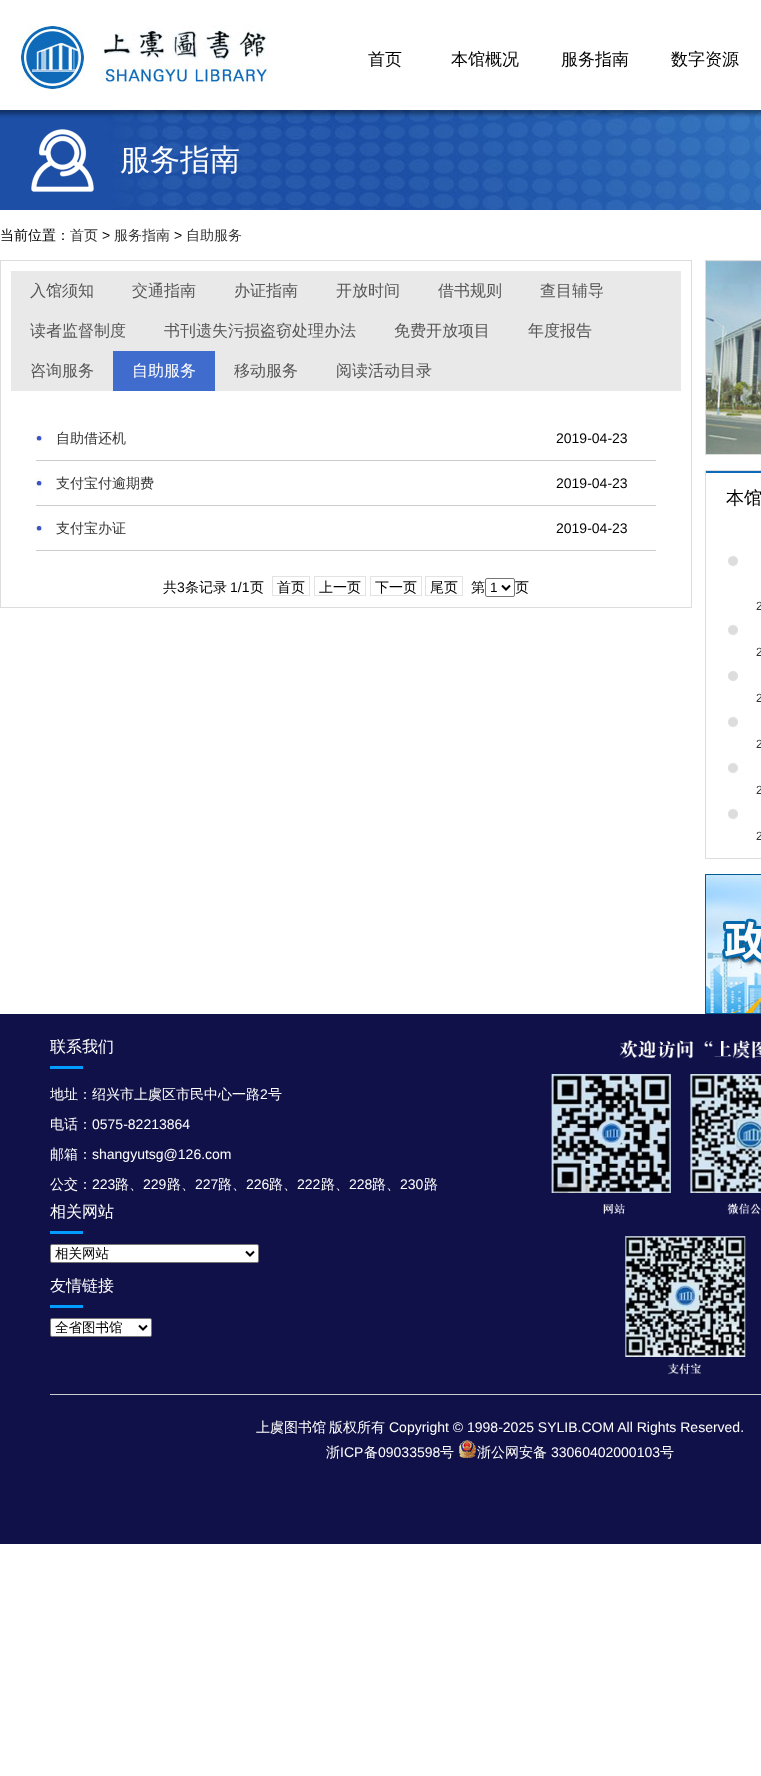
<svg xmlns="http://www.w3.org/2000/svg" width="761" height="1776">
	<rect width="100%" height="100%" fill="#FFFFFF" />
	<image x="20" y="25" width="248" height="64" href="assets/img1.png" />
	<g font-family="WenQuanYi Zen Hei" font-size="17" font-weight="500" fill="#000000">
		<text x="368" y="65">首页</text>
		<text x="451" y="65">本馆概况</text>
		<text x="561" y="65">服务指南</text>
		<text x="671" y="65">数字资源</text>
	</g>
	<image x="0" y="110" width="761" height="100" href="assets/img2.png" />
	<image x="31" y="129" width="63" height="63" href="assets/img3.png" />
	<text x="120" y="170" font-family="WenQuanYi Zen Hei" font-size="30" font-weight="500" fill="#FFFFFF">服务指南</text>
	<text x="0" y="240" font-family="WenQuanYi Zen Hei" font-size="14" font-weight="500" fill="#000000">当前位置：</text>
	<text x="70" y="240" font-family="WenQuanYi Zen Hei" font-size="14" font-weight="500" fill="#333333">首页</text>
	<text x="102" y="240" font-family="Liberation Sans" font-size="14" fill="#000000">&gt;</text>
	<text x="114" y="240" font-family="WenQuanYi Zen Hei" font-size="14" font-weight="500" fill="#333333">服务指南</text>
	<text x="174" y="240" font-family="Liberation Sans" font-size="14" fill="#000000">&gt;</text>
	<text x="186" y="240" font-family="WenQuanYi Zen Hei" font-size="14" font-weight="500" fill="#333333">自助服务</text>
	<rect x="0.5" y="260.5" width="691" height="347" fill="none" stroke="#DDDDDD" />
	<rect x="11" y="271" width="670" height="120" fill="#E9E9E9" />
	<g font-family="WenQuanYi Zen Hei" font-size="16" font-weight="500" fill="#565656">
		<text x="30" y="296">入馆须知</text>
		<text x="132" y="296">交通指南</text>
		<text x="234" y="296">办证指南</text>
		<text x="336" y="296">开放时间</text>
		<text x="438" y="296">借书规则</text>
		<text x="540" y="296">查目辅导</text>
		<text x="30" y="336">读者监督制度</text>
		<text x="164" y="336">书刊遗失污损盗窃处理办法</text>
		<text x="394" y="336">免费开放项目</text>
		<text x="528" y="336">年度报告</text>
		<text x="30" y="376">咨询服务</text>
	</g>
	<rect x="113" y="351" width="102" height="40" fill="#406CCE" />
	<text x="132" y="376" font-family="WenQuanYi Zen Hei" font-size="16" font-weight="500" fill="#FFFFFF">自助服务</text>
	<g font-family="WenQuanYi Zen Hei" font-size="16" font-weight="500" fill="#565656">
		<text x="234" y="376">移动服务</text>
		<text x="336" y="376">阅读活动目录</text>
	</g>
	<image x="36" y="432" width="6" height="16" href="assets/img4.png" />
	<rect x="36" y="460" width="620" height="1" fill="#CCCCCC" />
	<text x="56" y="443" font-family="WenQuanYi Zen Hei" font-size="14" font-weight="500" fill="#333333">自助借还机</text>
	<text x="556" y="443" font-family="Liberation Sans" font-size="14" fill="#000000">2019-04-23</text>
	<image x="36" y="477" width="6" height="16" href="assets/img4.png" />
	<rect x="36" y="505" width="620" height="1" fill="#CCCCCC" />
	<text x="56" y="488" font-family="WenQuanYi Zen Hei" font-size="14" font-weight="500" fill="#333333">支付宝付逾期费</text>
	<text x="556" y="488" font-family="Liberation Sans" font-size="14" fill="#000000">2019-04-23</text>
	<image x="36" y="522" width="6" height="16" href="assets/img4.png" />
	<rect x="36" y="550" width="620" height="1" fill="#CCCCCC" />
	<text x="56" y="533" font-family="WenQuanYi Zen Hei" font-size="14" font-weight="500" fill="#333333">支付宝办证</text>
	<text x="556" y="533" font-family="Liberation Sans" font-size="14" fill="#000000">2019-04-23</text>
	<text x="163" y="592" font-family="WenQuanYi Zen Hei" font-size="14" font-weight="500" fill="#000000">共</text>
	<text x="177" y="592" font-family="Liberation Sans" font-size="14" fill="#000000">3</text>
	<text x="185" y="592" font-family="WenQuanYi Zen Hei" font-size="14" font-weight="500" fill="#000000">条记录</text>
	<text x="230" y="592" font-family="Liberation Sans" font-size="14" fill="#000000">1/1</text>
	<text x="250" y="592" font-family="WenQuanYi Zen Hei" font-size="14" font-weight="500" fill="#000000">页</text>
	<rect x="272.5" y="576.5" width="37" height="19" fill="none" stroke="#E3E3E3" />
	<text x="277" y="592" font-family="WenQuanYi Zen Hei" font-size="14" font-weight="500" fill="#000000">首页</text>
	<rect x="314.5" y="576.5" width="51" height="19" fill="none" stroke="#E3E3E3" />
	<text x="319" y="592" font-family="WenQuanYi Zen Hei" font-size="14" font-weight="500" fill="#000000">上一页</text>
	<rect x="370.5" y="576.5" width="51" height="19" fill="none" stroke="#E3E3E3" />
	<text x="375" y="592" font-family="WenQuanYi Zen Hei" font-size="14" font-weight="500" fill="#000000">下一页</text>
	<rect x="425.5" y="576.5" width="37" height="19" fill="none" stroke="#E3E3E3" />
	<g font-family="WenQuanYi Zen Hei" font-size="14" font-weight="500" fill="#000000">
		<text x="430" y="592">尾页</text>
		<text x="471" y="592">第</text>
	</g>
	<rect x="485.5" y="578.5" width="29" height="18" rx="1.5" fill="none" stroke="#767676" />
	<path d="M502 585.5L506 589.5L510 585.5" fill="none" stroke="#000000" stroke-width="2" />
	<text x="490" y="592" font-family="Liberation Sans" font-size="13.5" fill="#000000">1</text>
	<text x="515" y="592" font-family="WenQuanYi Zen Hei" font-size="14" font-weight="500" fill="#000000">页</text>
	<image x="705" y="260" width="56" height="195" href="assets/img5.png" />
	<rect x="705.5" y="470.5" width="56" height="388" fill="none" stroke="#DDDDDD" />
	<rect x="706" y="471" width="55" height="2" fill="#0E6AB8" />
	<text x="726" y="504" font-family="WenQuanYi Zen Hei" font-size="18" font-weight="500" fill="#000000">本馆</text>
	<image x="728" y="555" width="10" height="12" href="assets/img6.png" />
	<text x="756" y="610" font-family="Liberation Sans" font-size="12" fill="#333333">2</text>
	<image x="728" y="624" width="10" height="12" href="assets/img6.png" />
	<text x="756" y="656" font-family="Liberation Sans" font-size="12" fill="#333333">2</text>
	<image x="728" y="670" width="10" height="12" href="assets/img6.png" />
	<text x="756" y="702" font-family="Liberation Sans" font-size="12" fill="#333333">2</text>
	<image x="728" y="716" width="10" height="12" href="assets/img6.png" />
	<text x="756" y="748" font-family="Liberation Sans" font-size="12" fill="#333333">2</text>
	<image x="728" y="762" width="10" height="12" href="assets/img6.png" />
	<text x="756" y="794" font-family="Liberation Sans" font-size="12" fill="#333333">2</text>
	<image x="728" y="808" width="10" height="12" href="assets/img6.png" />
	<text x="756" y="840" font-family="Liberation Sans" font-size="12" fill="#333333">2</text>
	<image x="705" y="874" width="56" height="140" href="assets/img7.png" />
	<rect x="0" y="1014" width="761" height="530" fill="#111149" />
	<image x="50" y="1066" width="39" height="3" href="assets/img8.png" />
	<text x="50" y="1052" font-family="WenQuanYi Zen Hei" font-size="16" font-weight="500" fill="#FFFFFF">联系我们</text>
	<text x="50" y="1099" font-family="WenQuanYi Zen Hei" font-size="14" font-weight="500" fill="#FFFFFF">地址：绍兴市上虞区市民中心一路</text>
	<text x="260" y="1099" font-family="Liberation Sans" font-size="14" fill="#FFFFFF">2</text>
	<g font-family="WenQuanYi Zen Hei" font-size="14" font-weight="500" fill="#FFFFFF">
		<text x="268" y="1099">号</text>
		<text x="50" y="1129">电话：</text>
	</g>
	<text x="92" y="1129" font-family="Liberation Sans" font-size="14" fill="#FFFFFF">0575-82213864</text>
	<text x="50" y="1159" font-family="WenQuanYi Zen Hei" font-size="14" font-weight="500" fill="#FFFFFF">邮箱：</text>
	<text x="92" y="1159" font-family="Liberation Sans" font-size="14" fill="#FFFFFF">shangyutsg@126.com</text>
	<text x="50" y="1189" font-family="WenQuanYi Zen Hei" font-size="14" font-weight="500" fill="#FFFFFF">公交：</text>
	<text x="92" y="1189" font-family="Liberation Sans" font-size="14" fill="#FFFFFF">223</text>
	<text x="115" y="1189" font-family="WenQuanYi Zen Hei" font-size="14" font-weight="500" fill="#FFFFFF">路、</text>
	<text x="143" y="1189" font-family="Liberation Sans" font-size="14" fill="#FFFFFF">229</text>
	<text x="167" y="1189" font-family="WenQuanYi Zen Hei" font-size="14" font-weight="500" fill="#FFFFFF">路、</text>
	<text x="195" y="1189" font-family="Liberation Sans" font-size="14" fill="#FFFFFF">227</text>
	<text x="218" y="1189" font-family="WenQuanYi Zen Hei" font-size="14" font-weight="500" fill="#FFFFFF">路、</text>
	<text x="246" y="1189" font-family="Liberation Sans" font-size="14" fill="#FFFFFF">226</text>
	<text x="269" y="1189" font-family="WenQuanYi Zen Hei" font-size="14" font-weight="500" fill="#FFFFFF">路、</text>
	<text x="297" y="1189" font-family="Liberation Sans" font-size="14" fill="#FFFFFF">222</text>
	<text x="321" y="1189" font-family="WenQuanYi Zen Hei" font-size="14" font-weight="500" fill="#FFFFFF">路、</text>
	<text x="349" y="1189" font-family="Liberation Sans" font-size="14" fill="#FFFFFF">228</text>
	<text x="372" y="1189" font-family="WenQuanYi Zen Hei" font-size="14" font-weight="500" fill="#FFFFFF">路、</text>
	<text x="400" y="1189" font-family="Liberation Sans" font-size="14" fill="#FFFFFF">230</text>
	<text x="424" y="1189" font-family="WenQuanYi Zen Hei" font-size="14" font-weight="500" fill="#FFFFFF">路</text>
	<image x="50" y="1231" width="39" height="3" href="assets/img8.png" />
	<text x="50" y="1217" font-family="WenQuanYi Zen Hei" font-size="16" font-weight="500" fill="#FFFFFF">相关网站</text>
	<rect x="50.5" y="1244.5" width="208" height="18" rx="1.5" fill="#FFFFFF" stroke="#767676" />
	<path d="M246 1251.5L250 1255.5L254 1251.5" fill="none" stroke="#000000" stroke-width="2" />
	<text x="55" y="1258" font-family="WenQuanYi Zen Hei" font-size="13.5" font-weight="500" fill="#000000">相关网站</text>
	<image x="50" y="1305" width="39" height="3" href="assets/img8.png" />
	<text x="50" y="1291" font-family="WenQuanYi Zen Hei" font-size="16" font-weight="500" fill="#FFFFFF">友情链接</text>
	<rect x="50.5" y="1318.5" width="101" height="18" rx="1.5" fill="#FFFFFF" stroke="#767676" />
	<path d="M139 1325.5L143 1329.5L147 1325.5" fill="none" stroke="#000000" stroke-width="2" />
	<text x="55" y="1332" font-family="WenQuanYi Zen Hei" font-size="13.5" font-weight="500" fill="#000000">全省图书馆</text>
	<image x="551" y="1040" width="210" height="335" href="assets/img9.png" />
	<rect x="50" y="1394" width="711" height="1" fill="#CCCCCC" />
	<g font-family="WenQuanYi Zen Hei" font-size="14" font-weight="500" fill="#FFFFFF">
		<text x="256" y="1432">上虞图书馆</text>
		<text x="329" y="1432">版权所有</text>
	</g>
	<text x="389" y="1432" font-family="Liberation Sans" font-size="14" fill="#FFFFFF">Copyright © 1998-2025 SYLIB.COM All Rights Reserved.</text>
	<text x="326" y="1457" font-family="WenQuanYi Zen Hei" font-size="14" font-weight="500" fill="#FFFFFF">浙</text>
	<text x="340" y="1457" font-family="Liberation Sans" font-size="14" fill="#FFFFFF">ICP</text>
	<text x="364" y="1457" font-family="WenQuanYi Zen Hei" font-size="14" font-weight="500" fill="#FFFFFF">备</text>
	<text x="378" y="1457" font-family="Liberation Sans" font-size="14" fill="#FFFFFF">09033598</text>
	<text x="440" y="1457" font-family="WenQuanYi Zen Hei" font-size="14" font-weight="500" fill="#FFFFFF">号</text>
	<image x="458" y="1440" width="19" height="19" href="assets/img10.png" />
	<text x="477" y="1457" font-family="WenQuanYi Zen Hei" font-size="14" font-weight="500" fill="#FFFFFF">浙公网安备</text>
	<text x="551" y="1457" font-family="Liberation Sans" font-size="14" fill="#FFFFFF">33060402000103</text>
	<text x="660" y="1457" font-family="WenQuanYi Zen Hei" font-size="14" font-weight="500" fill="#FFFFFF">号</text>
</svg>
